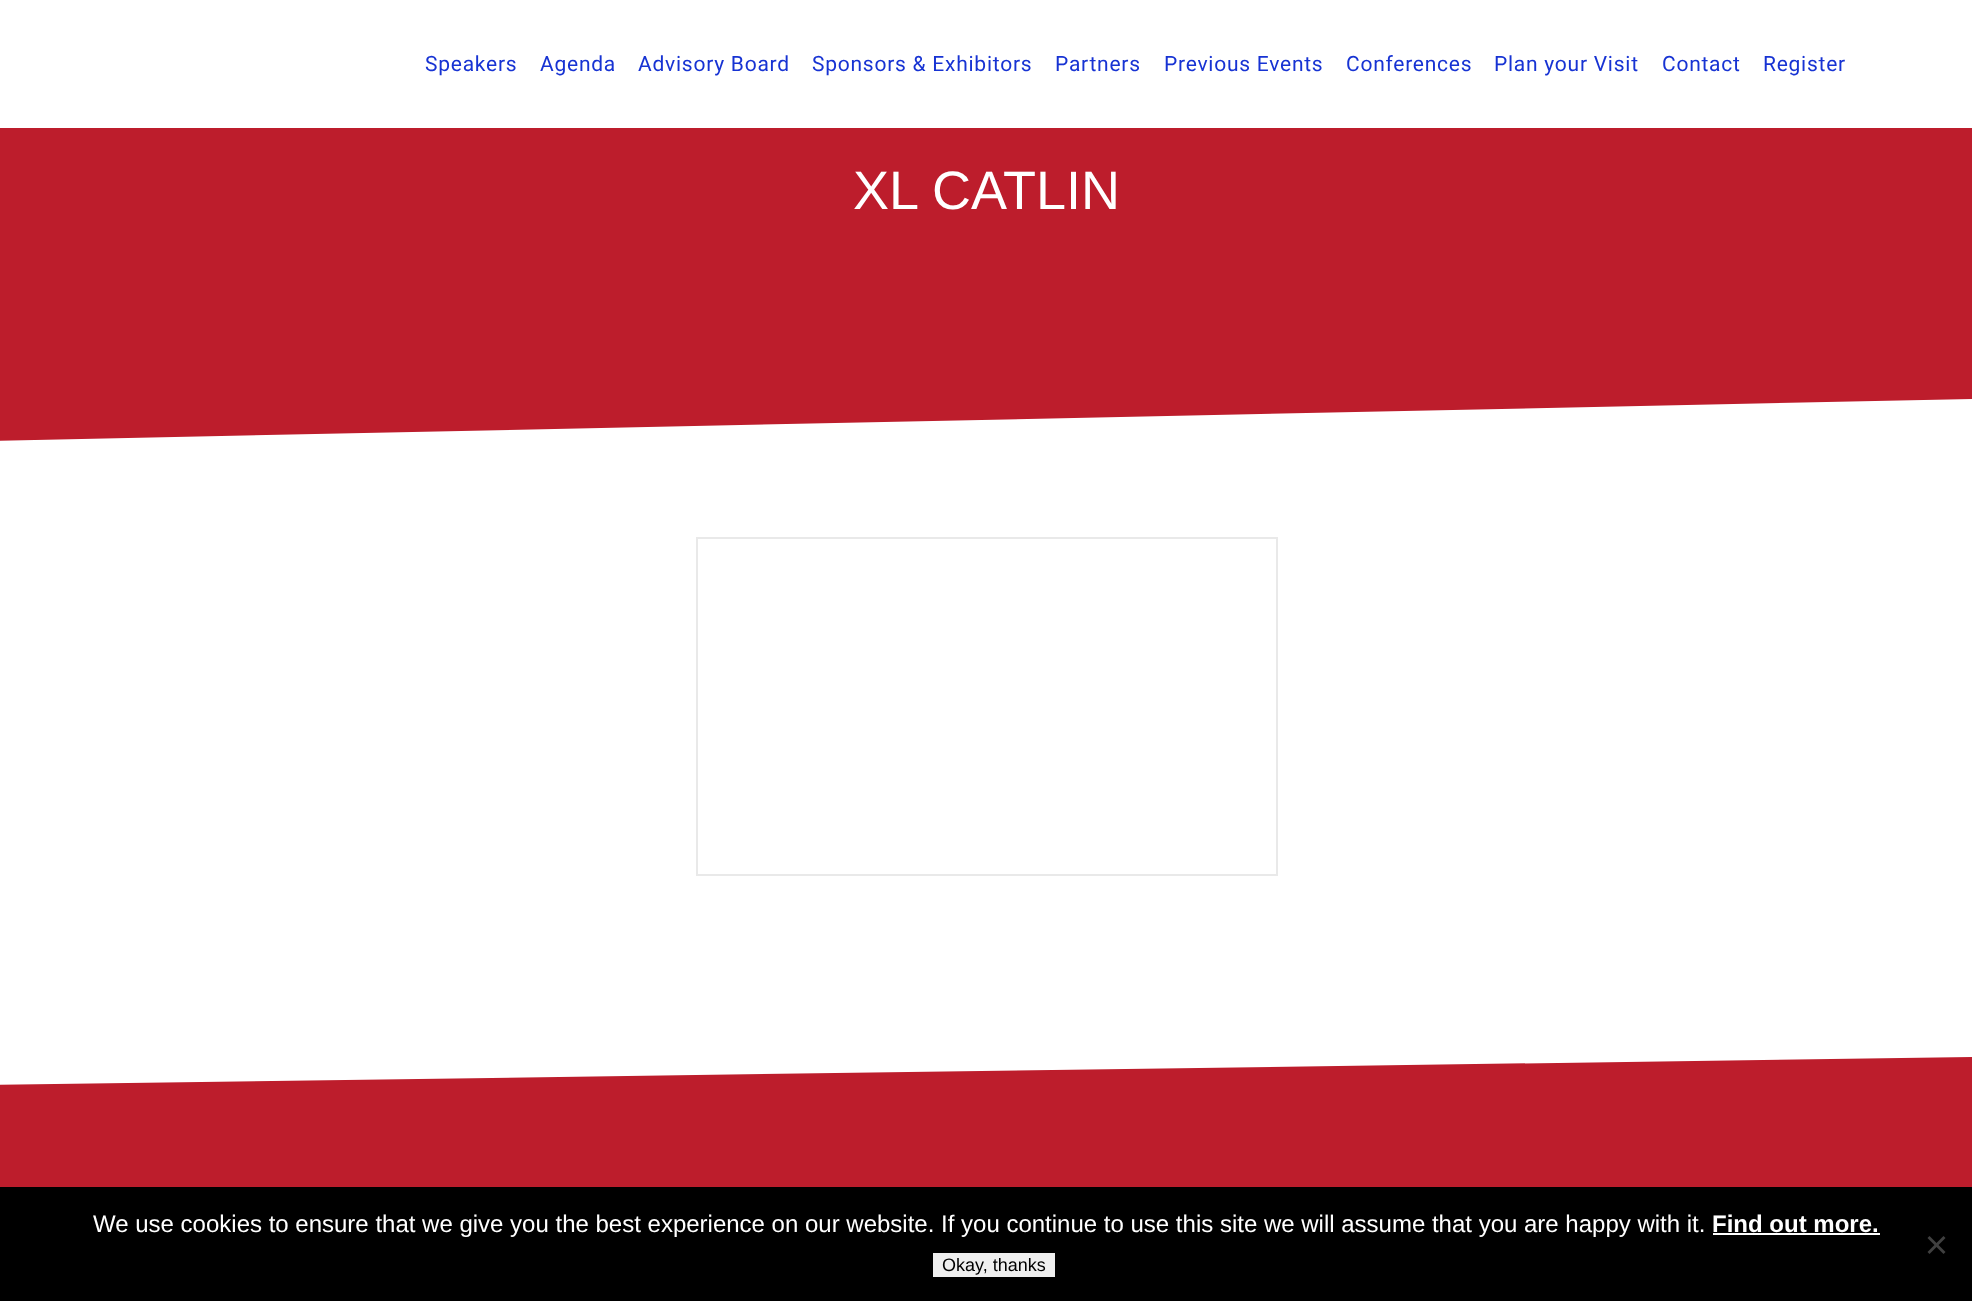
<svg xmlns="http://www.w3.org/2000/svg" width="1972" height="1301">
	<rect width="100%" height="100%" fill="#FFFFFF" />
	<path d="M-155-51L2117-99L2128 450L-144 498Z" fill="#BD1D2C" />
	<rect x="0" y="0" width="1972" height="128" fill="#FFFFFF" />
	<g font-family="Roboto" font-size="21" letter-spacing="0.75" fill="#1733D3">
		<text x="425" y="71">Speakers</text>
		<text x="540" y="71">Agenda</text>
		<text x="638" y="71">Advisory Board</text>
		<text x="812" y="71">Sponsors &amp; Exhibitors</text>
		<text x="1055" y="71">Partners</text>
		<text x="1164" y="71">Previous Events</text>
		<text x="1346" y="71">Conferences</text>
		<text x="1494" y="71">Plan your Visit</text>
		<text x="1662" y="71">Contact</text>
		<text x="1763" y="71">Register</text>
	</g>
	<text x="853" y="209" font-family="Liberation Sans" font-size="54" fill="#FFFFFF">XL CATLIN</text>
	<path d="M-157 444L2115 396L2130 1101L-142 1149Z" fill="#FFFFFF" />
	<rect x="697" y="538" width="580" height="337" fill="none" stroke="#E9E9E9" stroke-width="2" />
	<path d="M-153 1087L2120 1055L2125 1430L-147 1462Z" fill="#BD1D2C" />
	<rect x="0" y="1187" width="1972" height="114" fill="#000000" />
	<text x="93" y="1232" font-family="Liberation Sans" font-size="24" fill="#FFFFFF">We use cookies to ensure that we give you the best experience on our website. If you continue to use this site we will assume that you are happy with it.</text>
	<text x="1712" y="1232" font-family="Liberation Sans" font-size="24" font-weight="700" fill="#FFFFFF">Find out more.</text>
	<rect x="1713" y="1233" width="167" height="2" fill="#FFFFFF" />
	<path d="M1943.5 1236L1945.5 1238L1929.5 1254L1927.5 1252Z" fill="#404040" />
	<path d="M1927.5 1238L1929.5 1236L1945.5 1252L1943.5 1254Z" fill="#404040" />
	<rect x="933" y="1253" width="122" height="24" fill="#EFEFEF" />
	<text x="942" y="1271" font-family="Liberation Sans" font-size="18" fill="#000000">Okay, thanks</text>
</svg>
